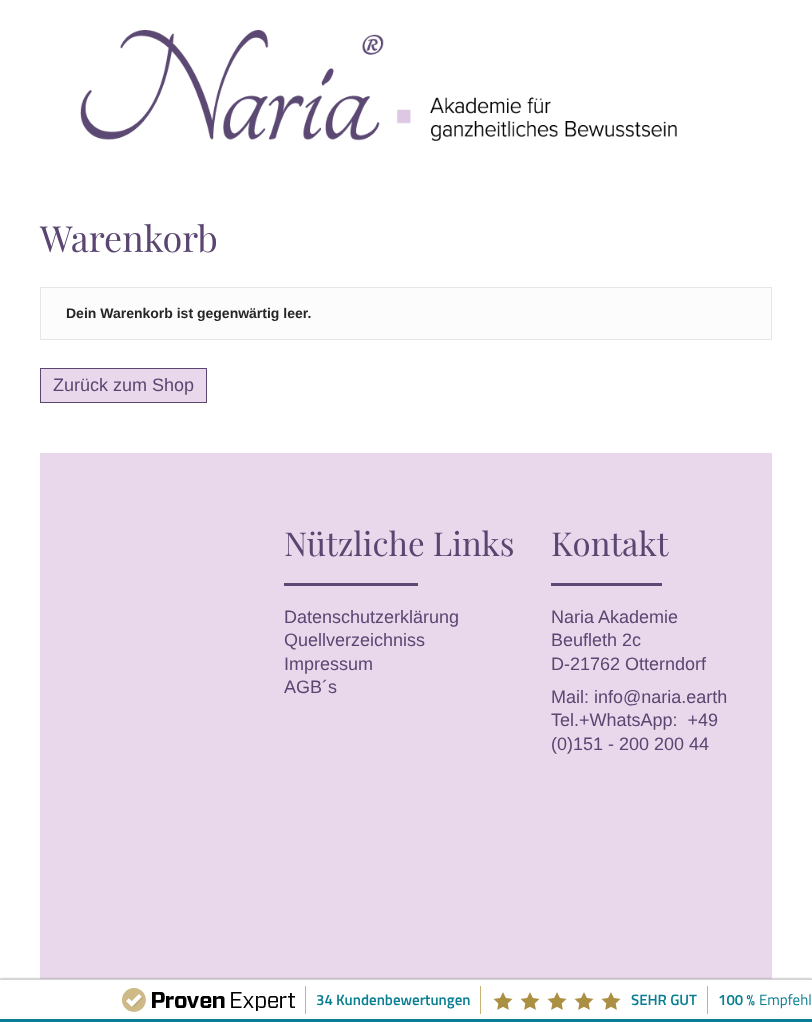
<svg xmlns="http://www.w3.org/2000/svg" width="812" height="1022">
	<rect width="100%" height="100%" fill="#FFFFFF" />
	<image x="80" y="30" width="597" height="111" href="assets/img1.png" />
	<text x="40" y="252" font-family="Playfair Display" font-size="36" fill="#5B4672">Warenkorb</text>
	<rect x="40.5" y="287.5" width="731" height="52" fill="#FCFCFC" stroke="#E6E6E6" />
	<text x="66" y="318" font-family="Liberation Sans" font-size="14" font-weight="700" fill="#262629">Dein Warenkorb ist gegenwärtig leer.</text>
	<rect x="40.5" y="368.5" width="166" height="34" fill="#E9D8EB" stroke="#5B4672" />
	<text x="53" y="391" font-family="Liberation Sans" font-size="18" fill="#5B4672">Zurück zum Shop</text>
	<rect x="40" y="453" width="732" height="526" fill="#E9D8EB" />
	<text x="284" y="556" font-family="Playfair Display" font-size="33" fill="#5B4672">Nützliche Links</text>
	<rect x="284" y="583" width="134" height="3" fill="#5C4973" />
	<g font-family="Liberation Sans" font-size="18" fill="#5B4672">
		<text x="284" y="623">Datenschutzerklärung</text>
		<text x="284" y="646">Quellverzeichniss</text>
		<text x="284" y="670">Impressum</text>
		<text x="284" y="693">AGB´s</text>
	</g>
	<text x="551" y="556" font-family="Playfair Display" font-size="33" fill="#5B4672">Kontakt</text>
	<rect x="551" y="583" width="111" height="3" fill="#5C4973" />
	<g font-family="Liberation Sans" font-size="18" fill="#5B4672">
		<text x="551" y="623">Naria Akademie</text>
		<text x="551" y="646">Beufleth 2c</text>
		<text x="551" y="670">D-21762 Otterndorf</text>
		<text x="551" y="703">Mail: info@naria.earth</text>
		<text x="551" y="726" xml:space="preserve">Tel.+WhatsApp:  +49</text>
		<text x="551" y="750">(0)151 - 200 200 44</text>
	</g>
	<rect x="0" y="979" width="812" height="43" fill="#888888" filter="blur(1px)" />
	<rect x="0" y="980" width="812" height="39" fill="#FFFFFF" />
	<rect x="0" y="979" width="812" height="1" fill="#D3D3D3" />
	<image x="122" y="988" width="173" height="24" href="assets/img2.png" />
	<rect x="305" y="986" width="1" height="28" fill="#C8B274" />
	<text x="316" y="1005" font-family="Titillium Web" font-size="15" font-weight="600" fill="#097E92">34 Kundenbewertungen</text>
	<rect x="480" y="986" width="1" height="28" fill="#C8B274" />
	<image x="493" y="992" width="20" height="18" href="assets/img3.png" />
	<image x="520" y="992" width="20" height="18" href="assets/img3.png" />
	<image x="547" y="992" width="20" height="18" href="assets/img3.png" />
	<image x="574" y="992" width="20" height="18" href="assets/img3.png" />
	<image x="601" y="992" width="20" height="18" href="assets/img3.png" />
	<text x="631" y="1005" font-family="Titillium Web" font-size="15" font-weight="600" fill="#097E92">SEHR GUT</text>
	<rect x="707" y="986" width="1" height="28" fill="#C8B274" />
	<text x="718" y="1005" font-family="Titillium Web" font-size="15" font-weight="600" fill="#097E92">100 %</text>
	<text x="759" y="1005" font-family="Titillium Web" font-size="15" fill="#097E92">Empfehl</text>
	<rect x="0" y="1019" width="812" height="3" fill="#097E92" />
</svg>
